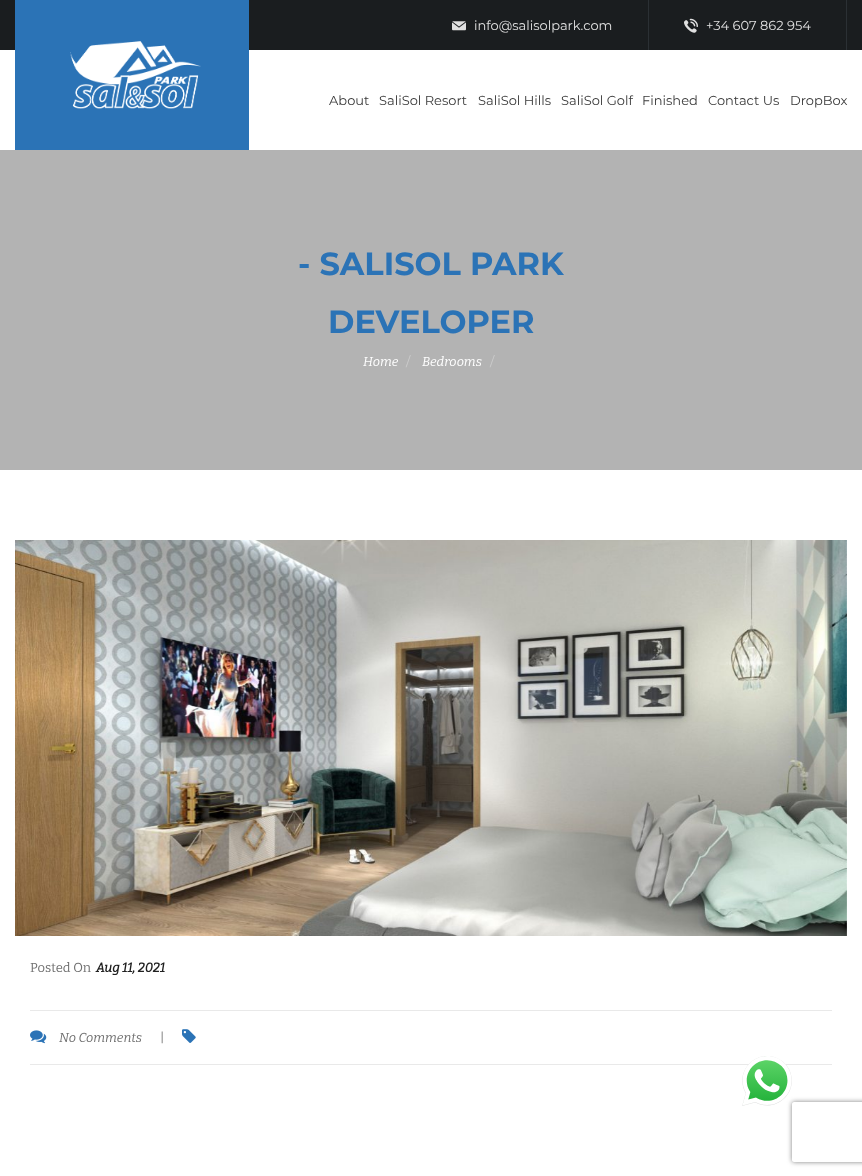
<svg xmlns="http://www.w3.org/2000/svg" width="862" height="1176">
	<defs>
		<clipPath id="clip1"><path d="M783 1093H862V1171H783ZM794 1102H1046C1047 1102 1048 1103 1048 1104V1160C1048 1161 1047 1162 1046 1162H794C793 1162 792 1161 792 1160V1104C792 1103 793 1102 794 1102Z" clip-rule="evenodd" /></clipPath>
	</defs>
	<rect width="100%" height="100%" fill="#FFFFFF" />
	<rect x="0" y="0" width="862" height="50" fill="#1A1D1F" />
	<rect x="648" y="0" width="1" height="50" fill="#2B3034" />
	<image x="452" y="21" width="14" height="10" href="assets/img1.png" />
	<text x="474" y="30" font-family="Montserrat" font-size="13" fill="#E0E0E0">info@salisolpark.com</text>
	<rect x="846" y="0" width="1" height="50" fill="#2B3034" />
	<image x="684" y="18" width="14" height="15" href="assets/img2.png" />
	<text x="706" y="30" font-family="Montserrat" font-size="13" fill="#E0E0E0">+34 607 862 954</text>
	<rect x="15" y="0" width="234" height="150" fill="#2B73B6" />
	<image x="70" y="41" width="131" height="68" href="assets/img3.png" />
	<g font-family="Montserrat" font-size="13" fill="#3A3A3A">
		<text x="329" y="105">About</text>
		<text x="379" y="105">SaliSol Resort</text>
		<text x="478" y="105">SaliSol Hills</text>
		<text x="561" y="105">SaliSol Golf</text>
		<text x="642" y="105">Finished</text>
		<text x="708" y="105">Contact Us</text>
		<text x="790" y="105">DropBox</text>
	</g>
	<rect x="0" y="150" width="862" height="320" fill="#B3B3B3" />
	<g font-family="Montserrat" font-size="32" font-weight="700" fill="#2B73B6">
		<text x="298" y="275">- SALISOL PARK</text>
		<text x="328" y="333">DEVELOPER</text>
	</g>
	<text x="363" y="366" font-family="Bitter" font-size="13" font-weight="100" font-style="italic" fill="#FFFFFF">Home</text>
	<text x="406" y="366" font-family="Montserrat" font-size="13" fill="#CCCCCC">/</text>
	<text x="422" y="366" font-family="Bitter" font-size="13" font-weight="100" font-style="italic" fill="#FFFFFF">Bedrooms</text>
	<text x="490" y="366" font-family="Montserrat" font-size="13" fill="#CCCCCC">/</text>
	<image x="15" y="540" width="832" height="396" href="assets/img4.png" />
	<text x="30" y="972" font-family="Bitter" font-size="13" fill="#707070">Posted On</text>
	<text x="96" y="972" font-family="Bitter" font-size="13" font-weight="700" font-style="italic" fill="#202020">Aug 11, 2021</text>
	<rect x="30" y="1010" width="802" height="1" fill="#E9E9E9" />
	<rect x="30" y="1064" width="802" height="1" fill="#E9E9E9" />
	<image x="30" y="1030" width="17" height="14" href="assets/img5.png" />
	<text x="59" y="1042" font-family="Bitter" font-size="13" font-weight="100" font-style="italic" fill="#707070">No Comments</text>
	<text x="160" y="1042" font-family="Bitter" font-size="13" fill="#707070">|</text>
	<image x="182" y="1029" width="14" height="14" href="assets/img6.png" />
	<g clip-path="url(#clip1)">
		<rect x="792" y="1102" width="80" height="60" rx="2" fill="#808080" filter="blur(2.5px)" />
	</g>
	<image x="742" y="1056" width="50" height="50" href="assets/img7.png" />
</svg>
